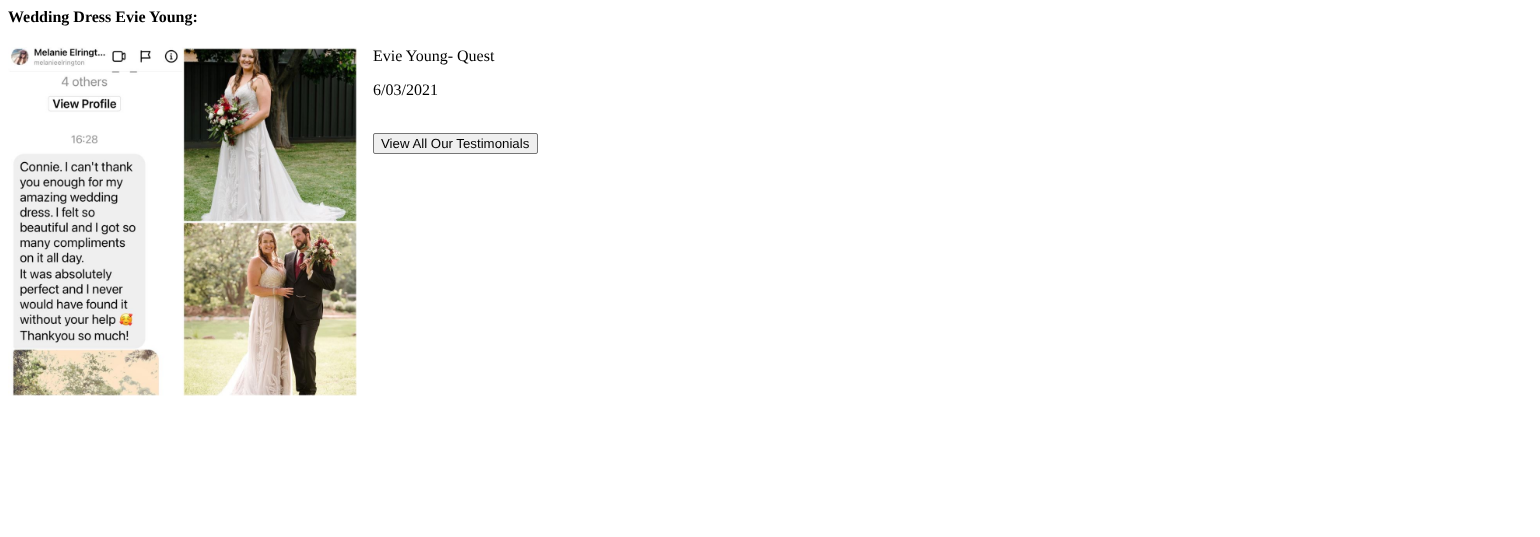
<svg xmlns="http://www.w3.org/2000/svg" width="1540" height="537">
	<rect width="100%" height="100%" fill="#FFFFFF" />
	<text x="8" y="22" font-family="Liberation Serif" font-size="16" font-weight="700" fill="#000000">Wedding Dress Evie Young:</text>
	<image x="8" y="47" width="349" height="349" href="assets/img1.png" />
	<g font-family="Liberation Serif" font-size="16" fill="#000000">
		<text x="373" y="61">Evie Young- Quest</text>
		<text x="373" y="95">6/03/2021</text>
	</g>
	<rect x="373.5" y="133.5" width="164" height="20" rx="1.5" fill="#EFEFEF" stroke="#767676" />
	<text x="381" y="148" font-family="Liberation Sans" font-size="13.25" fill="#000000">View All Our Testimonials</text>
</svg>
